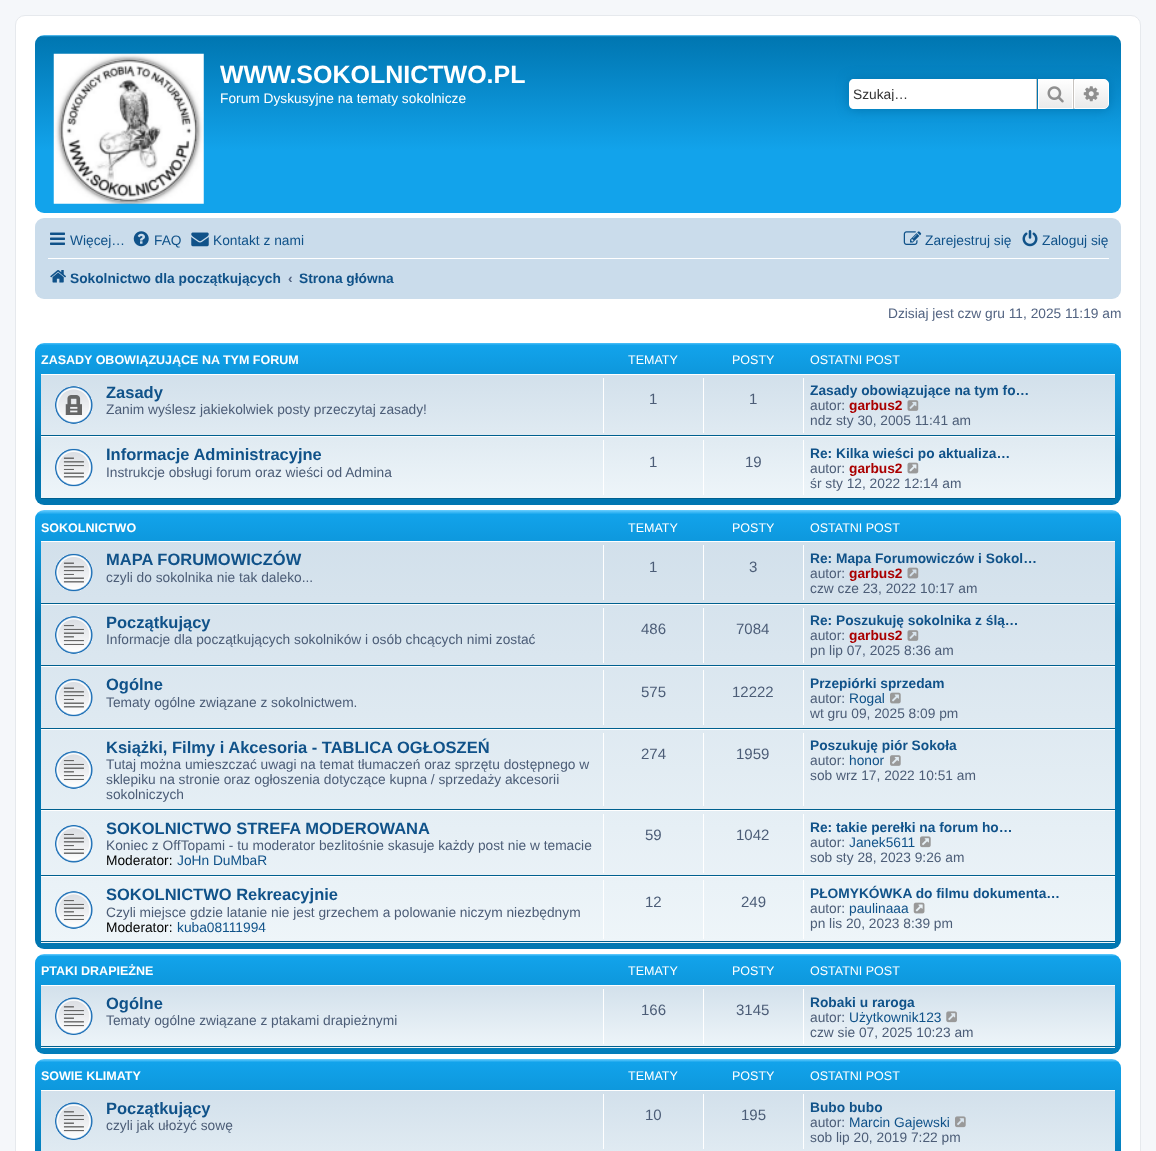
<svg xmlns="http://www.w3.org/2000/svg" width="1156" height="1151">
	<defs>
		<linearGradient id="g1" gradientUnits="userSpaceOnUse" x1="578" y1="35" x2="578" y2="213"><stop offset="0" stop-color="#6ACEFF" /><stop offset="0.01" stop-color="#0076B1" /><stop offset="0.65" stop-color="#12A3EB" /><stop offset="1" stop-color="#12A3EB" /></linearGradient>
		<clipPath id="clip1"><rect x="853" y="86" width="175" height="15" /></clipPath>
		<linearGradient id="g2" gradientUnits="userSpaceOnUse" x1="1055" y1="79" x2="1055" y2="109"><stop offset="0" stop-color="#FFFFFF" /><stop offset="1" stop-color="#E9E9E9" /></linearGradient>
		<linearGradient id="g3" gradientUnits="userSpaceOnUse" x1="1091" y1="79" x2="1091" y2="109"><stop offset="0" stop-color="#FFFFFF" /><stop offset="1" stop-color="#E9E9E9" /></linearGradient>
		<linearGradient id="g4" gradientUnits="userSpaceOnUse" x1="578" y1="342" x2="578" y2="505"><stop offset="0" stop-color="#6ACEFF" /><stop offset="0.02" stop-color="#12A3EB" /><stop offset="0.71" stop-color="#0076B1" /><stop offset="1" stop-color="#0076B1" /></linearGradient>
		<linearGradient id="g5" gradientUnits="userSpaceOnUse" x1="578" y1="374" x2="578" y2="499"><stop offset="0" stop-color="#D2E0EB" /><stop offset="1" stop-color="#EEF5F9" /></linearGradient>
		<linearGradient id="g6" gradientUnits="userSpaceOnUse" x1="578" y1="510" x2="578" y2="949"><stop offset="0" stop-color="#6ACEFF" /><stop offset="0.01" stop-color="#12A3EB" /><stop offset="0.26" stop-color="#0076B1" /><stop offset="1" stop-color="#0076B1" /></linearGradient>
		<linearGradient id="g7" gradientUnits="userSpaceOnUse" x1="578" y1="541" x2="578" y2="943"><stop offset="0" stop-color="#D2E0EB" /><stop offset="1" stop-color="#EEF5F9" /></linearGradient>
		<linearGradient id="g8" gradientUnits="userSpaceOnUse" x1="578" y1="954" x2="578" y2="1069"><stop offset="0" stop-color="#6ACEFF" /><stop offset="0.02" stop-color="#12A3EB" /><stop offset="1" stop-color="#0076B1" /></linearGradient>
		<linearGradient id="g9" gradientUnits="userSpaceOnUse" x1="578" y1="985" x2="578" y2="1048"><stop offset="0" stop-color="#D2E0EB" /><stop offset="1" stop-color="#EEF5F9" /></linearGradient>
		<linearGradient id="g10" gradientUnits="userSpaceOnUse" x1="578" y1="1059" x2="578" y2="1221"><stop offset="0" stop-color="#6ACEFF" /><stop offset="0.02" stop-color="#12A3EB" /><stop offset="0.71" stop-color="#0076B1" /><stop offset="1" stop-color="#0076B1" /></linearGradient>
		<linearGradient id="g11" gradientUnits="userSpaceOnUse" x1="578" y1="1090" x2="578" y2="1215"><stop offset="0" stop-color="#D2E0EB" /><stop offset="1" stop-color="#EEF5F9" /></linearGradient>
	</defs>
	<rect width="100%" height="100%" fill="#F5F7FA" />
	<rect x="15.5" y="15.5" width="1125" height="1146" rx="9.5" fill="#FFFFFF" stroke="#E6E9ED" />
	<rect x="35" y="35" width="1086" height="178" rx="9" fill="url(#g1)" />
	<image x="53" y="53" width="151" height="151" href="assets/img1.png" />
	<text x="220" y="83" font-family="Liberation Sans" font-size="25" font-weight="700" fill="#FFFFFF">WWW.SOKOLNICTWO.PL</text>
	<text x="220" y="103" font-family="Liberation Sans" font-size="13.75" fill="#FFFFFF">Forum Dyskusyjne na tematy sokolnicze</text>
	<rect x="849" y="79" width="260" height="30" rx="5" fill="#0075B0" filter="blur(6px)" />
	<path d="M854 79H1036V109H854C851 109 849 107 849 104V84C849 81 851 79 854 79Z" fill="#FFFFFF" />
	<g clip-path="url(#clip1)">
		<text x="853" y="99" font-family="Liberation Sans" font-size="13.75" fill="#333333">Szukaj…</text>
	</g>
	<rect x="1039" y="80" width="33" height="28" fill="url(#g2)" />
	<rect x="1038.5" y="79.5" width="34" height="29" fill="none" stroke="#FFFFFF" />
	<rect x="1073" y="79" width="1" height="30" fill="#C7C3BF" />
	<rect x="1036" y="79" width="1" height="30" fill="#C7C3BF" />
	<image x="1047" y="86" width="17" height="17" href="assets/img2.png" />
	<path d="M1074.5 79.5H1104C1106.5 79.5 1108.5 81.5 1108.5 84V104C1108.5 106.5 1106.5 108.5 1104 108.5H1074.5Z" fill="url(#g3)" stroke="#FFFFFF" />
	<image x="1083" y="86" width="16" height="16" href="assets/img3.png" />
	<rect x="35" y="218" width="1086" height="81" rx="9" fill="#CADCEB" />
	<image x="50" y="232" width="15" height="13" href="assets/img4.png" />
	<text x="70" y="245" font-family="Liberation Sans" font-size="13.75" fill="#105289">Więcej…</text>
	<image x="133" y="231" width="16" height="16" href="assets/img5.png" />
	<text x="154" y="245" font-family="Liberation Sans" font-size="13.75" fill="#105289">FAQ</text>
	<image x="191" y="232" width="18" height="15" href="assets/img6.png" />
	<text x="213" y="245" font-family="Liberation Sans" font-size="13.75" fill="#105289">Kontakt z nami</text>
	<image x="903" y="231" width="19" height="14" href="assets/img7.png" />
	<text x="925" y="245" font-family="Liberation Sans" font-size="13.75" fill="#105289">Zarejestruj się</text>
	<image x="1022" y="230" width="16" height="17" href="assets/img8.png" />
	<text x="1042" y="245" font-family="Liberation Sans" font-size="13.75" fill="#105289">Zaloguj się</text>
	<rect x="48" y="258" width="1061" height="1" fill="#FFFFFF" />
	<image x="50" y="270" width="16" height="13" href="assets/img9.png" />
	<text x="70" y="283" font-family="Liberation Sans" font-size="13.75" font-weight="700" fill="#105289">Sokolnictwo dla początkujących</text>
	<text x="288" y="283" font-family="Liberation Sans" font-size="13.75" font-weight="700" fill="#536482">‹</text>
	<text x="299" y="283" font-family="Liberation Sans" font-size="13.75" font-weight="700" fill="#105289">Strona główna</text>
	<text x="888" y="318" font-family="Liberation Sans" font-size="13.75" fill="#536482">Dzisiaj jest czw gru 11, 2025 11:19 am</text>
	<rect x="35" y="343" width="1086" height="162" rx="9" fill="url(#g4)" />
	<text x="41" y="364" font-family="Liberation Sans" font-size="12.5" font-weight="700" fill="#FFFFFF">ZASADY OBOWIĄZUJĄCE NA TYM FORUM</text>
	<g font-family="Liberation Sans" font-size="12.5" fill="#FFFFFF">
		<text x="628" y="364">TEMATY</text>
		<text x="732" y="364">POSTY</text>
		<text x="810" y="364">OSTATNI POST</text>
	</g>
	<rect x="41" y="375" width="1074" height="123" fill="url(#g5)" />
	<rect x="41" y="374" width="1074" height="1" fill="#FFFFFF" />
	<rect x="41" y="435" width="1074" height="1" fill="#00608F" />
	<image x="55" y="386" width="38" height="38" href="assets/img10.png" />
	<text x="106" y="398" font-family="Liberation Sans" font-size="16.5" font-weight="700" fill="#105289">Zasady</text>
	<text x="106" y="414" font-family="Liberation Sans" font-size="13.75" fill="#4C5D77">Zanim wyślesz jakiekolwiek posty przeczytaj zasady!</text>
	<rect x="603" y="378" width="1" height="55" fill="#FFFFFF" />
	<text x="649" y="404" font-family="Liberation Sans" font-size="15" fill="#4C5D77">1</text>
	<rect x="703" y="378" width="1" height="55" fill="#FFFFFF" />
	<text x="749" y="404" font-family="Liberation Sans" font-size="15" fill="#4C5D77">1</text>
	<rect x="803" y="378" width="1" height="55" fill="#FFFFFF" />
	<text x="810" y="395" font-family="Liberation Sans" font-size="13.75" font-weight="700" fill="#105289">Zasady obowiązujące na tym fo…</text>
	<text x="810" y="410" font-family="Liberation Sans" font-size="13.75" fill="#4C5D77">autor:</text>
	<text x="849" y="410" font-family="Liberation Sans" font-size="13.75" font-weight="700" fill="#AA0000">garbus2</text>
	<image x="907" y="400" width="12" height="11" href="assets/img11.png" />
	<text x="810" y="425" font-family="Liberation Sans" font-size="13.75" fill="#4C5D77">ndz sty 30, 2005 11:41 am</text>
	<rect x="41" y="436" width="1074" height="1" fill="#FFFFFF" />
	<rect x="41" y="498" width="1074" height="1" fill="#00608F" />
	<image x="55" y="448" width="38" height="39" href="assets/img12.png" />
	<text x="106" y="460" font-family="Liberation Sans" font-size="16.5" font-weight="700" fill="#105289">Informacje Administracyjne</text>
	<text x="106" y="477" font-family="Liberation Sans" font-size="13.75" fill="#4C5D77">Instrukcje obsługi forum oraz wieści od Admina</text>
	<rect x="603" y="440" width="1" height="55" fill="#FFFFFF" />
	<text x="649" y="467" font-family="Liberation Sans" font-size="15" fill="#4C5D77">1</text>
	<rect x="703" y="440" width="1" height="55" fill="#FFFFFF" />
	<text x="745" y="467" font-family="Liberation Sans" font-size="15" fill="#4C5D77">19</text>
	<rect x="803" y="440" width="1" height="55" fill="#FFFFFF" />
	<text x="810" y="458" font-family="Liberation Sans" font-size="13.75" font-weight="700" fill="#105289">Re: Kilka wieści po aktualiza…</text>
	<text x="810" y="473" font-family="Liberation Sans" font-size="13.75" fill="#4C5D77">autor:</text>
	<text x="849" y="473" font-family="Liberation Sans" font-size="13.75" font-weight="700" fill="#AA0000">garbus2</text>
	<image x="907" y="462" width="12" height="12" href="assets/img13.png" />
	<text x="810" y="488" font-family="Liberation Sans" font-size="13.75" fill="#4C5D77">śr sty 12, 2022 12:14 am</text>
	<rect x="35" y="510" width="1086" height="439" rx="9" fill="url(#g6)" />
	<text x="41" y="532" font-family="Liberation Sans" font-size="12.5" font-weight="700" fill="#FFFFFF">SOKOLNICTWO</text>
	<g font-family="Liberation Sans" font-size="12.5" fill="#FFFFFF">
		<text x="628" y="532">TEMATY</text>
		<text x="732" y="532">POSTY</text>
		<text x="810" y="532">OSTATNI POST</text>
	</g>
	<rect x="41" y="542" width="1074" height="401" fill="url(#g7)" />
	<rect x="41" y="541" width="1074" height="1" fill="#FFFFFF" />
	<rect x="41" y="603" width="1074" height="1" fill="#00608F" />
	<image x="55" y="553" width="38" height="39" href="assets/img14.png" />
	<text x="106" y="565" font-family="Liberation Sans" font-size="16.5" font-weight="700" fill="#105289">MAPA FORUMOWICZÓW</text>
	<text x="106" y="582" font-family="Liberation Sans" font-size="13.75" fill="#4C5D77">czyli do sokolnika nie tak daleko...</text>
	<rect x="603" y="545" width="1" height="55" fill="#FFFFFF" />
	<text x="649" y="572" font-family="Liberation Sans" font-size="15" fill="#4C5D77">1</text>
	<rect x="703" y="545" width="1" height="55" fill="#FFFFFF" />
	<text x="749" y="572" font-family="Liberation Sans" font-size="15" fill="#4C5D77">3</text>
	<rect x="803" y="545" width="1" height="55" fill="#FFFFFF" />
	<text x="810" y="563" font-family="Liberation Sans" font-size="13.75" font-weight="700" fill="#105289">Re: Mapa Forumowiczów i Sokol…</text>
	<text x="810" y="578" font-family="Liberation Sans" font-size="13.75" fill="#4C5D77">autor:</text>
	<text x="849" y="578" font-family="Liberation Sans" font-size="13.75" font-weight="700" fill="#AA0000">garbus2</text>
	<image x="907" y="567" width="12" height="12" href="assets/img15.png" />
	<text x="810" y="593" font-family="Liberation Sans" font-size="13.75" fill="#4C5D77">czw cze 23, 2022 10:17 am</text>
	<rect x="41" y="604" width="1074" height="1" fill="#FFFFFF" />
	<rect x="41" y="665" width="1074" height="1" fill="#00608F" />
	<image x="55" y="616" width="38" height="38" href="assets/img16.png" />
	<text x="106" y="628" font-family="Liberation Sans" font-size="16.5" font-weight="700" fill="#105289">Początkujący</text>
	<text x="106" y="644" font-family="Liberation Sans" font-size="13.75" fill="#4C5D77">Informacje dla początkujących sokolników i osób chcących nimi zostać</text>
	<rect x="603" y="608" width="1" height="55" fill="#FFFFFF" />
	<text x="641" y="634" font-family="Liberation Sans" font-size="15" fill="#4C5D77">486</text>
	<rect x="703" y="608" width="1" height="55" fill="#FFFFFF" />
	<text x="736" y="634" font-family="Liberation Sans" font-size="15" fill="#4C5D77">7084</text>
	<rect x="803" y="608" width="1" height="55" fill="#FFFFFF" />
	<text x="810" y="625" font-family="Liberation Sans" font-size="13.75" font-weight="700" fill="#105289">Re: Poszukuję sokolnika z ślą…</text>
	<text x="810" y="640" font-family="Liberation Sans" font-size="13.75" fill="#4C5D77">autor:</text>
	<text x="849" y="640" font-family="Liberation Sans" font-size="13.75" font-weight="700" fill="#AA0000">garbus2</text>
	<image x="907" y="630" width="12" height="11" href="assets/img17.png" />
	<text x="810" y="655" font-family="Liberation Sans" font-size="13.75" fill="#4C5D77">pn lip 07, 2025 8:36 am</text>
	<rect x="41" y="666" width="1074" height="1" fill="#FFFFFF" />
	<rect x="41" y="728" width="1074" height="1" fill="#00608F" />
	<image x="55" y="678" width="38" height="39" href="assets/img18.png" />
	<text x="106" y="690" font-family="Liberation Sans" font-size="16.5" font-weight="700" fill="#105289">Ogólne</text>
	<text x="106" y="707" font-family="Liberation Sans" font-size="13.75" fill="#4C5D77">Tematy ogólne związane z sokolnictwem.</text>
	<rect x="603" y="670" width="1" height="55" fill="#FFFFFF" />
	<text x="641" y="697" font-family="Liberation Sans" font-size="15" fill="#4C5D77">575</text>
	<rect x="703" y="670" width="1" height="55" fill="#FFFFFF" />
	<text x="732" y="697" font-family="Liberation Sans" font-size="15" fill="#4C5D77">12222</text>
	<rect x="803" y="670" width="1" height="55" fill="#FFFFFF" />
	<text x="810" y="688" font-family="Liberation Sans" font-size="13.75" font-weight="700" fill="#105289">Przepiórki sprzedam</text>
	<text x="810" y="703" font-family="Liberation Sans" font-size="13.75" fill="#4C5D77">autor:</text>
	<text x="849" y="703" font-family="Liberation Sans" font-size="13.75" fill="#105289">Rogal</text>
	<image x="890" y="692" width="11" height="12" href="assets/img19.png" />
	<text x="810" y="718" font-family="Liberation Sans" font-size="13.75" fill="#4C5D77">wt gru 09, 2025 8:09 pm</text>
	<rect x="41" y="729" width="1074" height="1" fill="#FFFFFF" />
	<rect x="41" y="809" width="1074" height="1" fill="#00608F" />
	<image x="55" y="751" width="38" height="38" href="assets/img20.png" />
	<text x="106" y="753" font-family="Liberation Sans" font-size="16.5" font-weight="700" fill="#105289">Książki, Filmy i Akcesoria - TABLICA OGŁOSZEŃ</text>
	<g font-family="Liberation Sans" font-size="13.75" fill="#4C5D77">
		<text x="106" y="769">Tutaj można umieszczać uwagi na temat tłumaczeń oraz sprzętu dostępnego w</text>
		<text x="106" y="784">sklepiku na stronie oraz ogłoszenia dotyczące kupna / sprzedaży akcesorii</text>
		<text x="106" y="799">sokolniczych</text>
	</g>
	<rect x="603" y="733" width="1" height="73" fill="#FFFFFF" />
	<text x="641" y="759" font-family="Liberation Sans" font-size="15" fill="#4C5D77">274</text>
	<rect x="703" y="733" width="1" height="73" fill="#FFFFFF" />
	<text x="736" y="759" font-family="Liberation Sans" font-size="15" fill="#4C5D77">1959</text>
	<rect x="803" y="733" width="1" height="73" fill="#FFFFFF" />
	<text x="810" y="750" font-family="Liberation Sans" font-size="13.75" font-weight="700" fill="#105289">Poszukuję piór Sokoła</text>
	<text x="810" y="765" font-family="Liberation Sans" font-size="13.75" fill="#4C5D77">autor:</text>
	<text x="849" y="765" font-family="Liberation Sans" font-size="13.75" fill="#105289">honor</text>
	<image x="890" y="755" width="11" height="11" href="assets/img21.png" />
	<text x="810" y="780" font-family="Liberation Sans" font-size="13.75" fill="#4C5D77">sob wrz 17, 2022 10:51 am</text>
	<rect x="41" y="810" width="1074" height="1" fill="#FFFFFF" />
	<rect x="41" y="875" width="1074" height="1" fill="#00608F" />
	<image x="55" y="825" width="38" height="38" href="assets/img22.png" />
	<text x="106" y="834" font-family="Liberation Sans" font-size="16.5" font-weight="700" fill="#105289">SOKOLNICTWO STREFA MODEROWANA</text>
	<text x="106" y="850" font-family="Liberation Sans" font-size="13.75" fill="#4C5D77">Koniec z OffTopami - tu moderator bezlitośnie skasuje każdy post nie w temacie</text>
	<text x="106" y="865" font-family="Liberation Sans" font-size="13.75" fill="#000000">Moderator:</text>
	<text x="177" y="865" font-family="Liberation Sans" font-size="13.75" fill="#105289">JoHn DuMbaR</text>
	<rect x="603" y="814" width="1" height="59" fill="#FFFFFF" />
	<text x="645" y="840" font-family="Liberation Sans" font-size="15" fill="#4C5D77">59</text>
	<rect x="703" y="814" width="1" height="59" fill="#FFFFFF" />
	<text x="736" y="840" font-family="Liberation Sans" font-size="15" fill="#4C5D77">1042</text>
	<rect x="803" y="814" width="1" height="59" fill="#FFFFFF" />
	<text x="810" y="832" font-family="Liberation Sans" font-size="13.75" font-weight="700" fill="#105289">Re: takie perełki na forum ho…</text>
	<text x="810" y="847" font-family="Liberation Sans" font-size="13.75" fill="#4C5D77">autor:</text>
	<text x="849" y="847" font-family="Liberation Sans" font-size="13.75" fill="#105289">Janek5611</text>
	<image x="920" y="836" width="11" height="12" href="assets/img23.png" />
	<text x="810" y="862" font-family="Liberation Sans" font-size="13.75" fill="#4C5D77">sob sty 28, 2023 9:26 am</text>
	<rect x="41" y="876" width="1074" height="1" fill="#FFFFFF" />
	<rect x="41" y="941" width="1074" height="1" fill="#00608F" />
	<image x="55" y="891" width="38" height="38" href="assets/img24.png" />
	<text x="106" y="900" font-family="Liberation Sans" font-size="16.5" font-weight="700" fill="#105289">SOKOLNICTWO Rekreacyjnie</text>
	<text x="106" y="917" font-family="Liberation Sans" font-size="13.75" fill="#4C5D77">Czyli miejsce gdzie latanie nie jest grzechem a polowanie niczym niezbędnym</text>
	<text x="106" y="932" font-family="Liberation Sans" font-size="13.75" fill="#000000">Moderator:</text>
	<text x="177" y="932" font-family="Liberation Sans" font-size="13.75" fill="#105289">kuba08111994</text>
	<rect x="603" y="880" width="1" height="59" fill="#FFFFFF" />
	<text x="645" y="907" font-family="Liberation Sans" font-size="15" fill="#4C5D77">12</text>
	<rect x="703" y="880" width="1" height="59" fill="#FFFFFF" />
	<text x="741" y="907" font-family="Liberation Sans" font-size="15" fill="#4C5D77">249</text>
	<rect x="803" y="880" width="1" height="59" fill="#FFFFFF" />
	<text x="810" y="898" font-family="Liberation Sans" font-size="13.75" font-weight="700" fill="#105289">PŁOMYKÓWKA do filmu dokumenta…</text>
	<text x="810" y="913" font-family="Liberation Sans" font-size="13.75" fill="#4C5D77">autor:</text>
	<text x="849" y="913" font-family="Liberation Sans" font-size="13.75" fill="#105289">paulinaaa</text>
	<image x="913" y="902" width="12" height="12" href="assets/img25.png" />
	<text x="810" y="928" font-family="Liberation Sans" font-size="13.75" fill="#4C5D77">pn lis 20, 2023 8:39 pm</text>
	<rect x="35" y="954" width="1086" height="100" rx="9" fill="url(#g8)" />
	<text x="41" y="975" font-family="Liberation Sans" font-size="12.5" font-weight="700" fill="#FFFFFF">PTAKI DRAPIEŻNE</text>
	<g font-family="Liberation Sans" font-size="12.5" fill="#FFFFFF">
		<text x="628" y="975">TEMATY</text>
		<text x="732" y="975">POSTY</text>
		<text x="810" y="975">OSTATNI POST</text>
	</g>
	<rect x="41" y="986" width="1074" height="62" fill="url(#g9)" />
	<rect x="41" y="985" width="1074" height="1" fill="#FFFFFF" />
	<rect x="41" y="1046" width="1074" height="1" fill="#00608F" />
	<image x="55" y="997" width="38" height="38" href="assets/img26.png" />
	<text x="106" y="1009" font-family="Liberation Sans" font-size="16.5" font-weight="700" fill="#105289">Ogólne</text>
	<text x="106" y="1025" font-family="Liberation Sans" font-size="13.75" fill="#4C5D77">Tematy ogólne związane z ptakami drapieżnymi</text>
	<rect x="603" y="989" width="1" height="55" fill="#FFFFFF" />
	<text x="641" y="1015" font-family="Liberation Sans" font-size="15" fill="#4C5D77">166</text>
	<rect x="703" y="989" width="1" height="55" fill="#FFFFFF" />
	<text x="736" y="1015" font-family="Liberation Sans" font-size="15" fill="#4C5D77">3145</text>
	<rect x="803" y="989" width="1" height="55" fill="#FFFFFF" />
	<text x="810" y="1007" font-family="Liberation Sans" font-size="13.75" font-weight="700" fill="#105289">Robaki u raroga</text>
	<text x="810" y="1022" font-family="Liberation Sans" font-size="13.75" fill="#4C5D77">autor:</text>
	<text x="849" y="1022" font-family="Liberation Sans" font-size="13.75" fill="#105289">Użytkownik123</text>
	<image x="946" y="1011" width="11" height="12" href="assets/img27.png" />
	<text x="810" y="1037" font-family="Liberation Sans" font-size="13.75" fill="#4C5D77">czw sie 07, 2025 10:23 am</text>
	<rect x="35" y="1059" width="1086" height="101" rx="9" fill="url(#g10)" />
	<text x="41" y="1080" font-family="Liberation Sans" font-size="12.5" font-weight="700" fill="#FFFFFF">SOWIE KLIMATY</text>
	<g font-family="Liberation Sans" font-size="12.5" fill="#FFFFFF">
		<text x="628" y="1080">TEMATY</text>
		<text x="732" y="1080">POSTY</text>
		<text x="810" y="1080">OSTATNI POST</text>
	</g>
	<rect x="41" y="1091" width="1074" height="60" fill="url(#g11)" />
	<rect x="41" y="1090" width="1074" height="1" fill="#FFFFFF" />
	<image x="55" y="1102" width="38" height="38" href="assets/img28.png" />
	<text x="106" y="1114" font-family="Liberation Sans" font-size="16.5" font-weight="700" fill="#105289">Początkujący</text>
	<text x="106" y="1130" font-family="Liberation Sans" font-size="13.75" fill="#4C5D77">czyli jak ułożyć sowę</text>
	<rect x="603" y="1094" width="1" height="55" fill="#FFFFFF" />
	<text x="645" y="1120" font-family="Liberation Sans" font-size="15" fill="#4C5D77">10</text>
	<rect x="703" y="1094" width="1" height="55" fill="#FFFFFF" />
	<text x="741" y="1120" font-family="Liberation Sans" font-size="15" fill="#4C5D77">195</text>
	<rect x="803" y="1094" width="1" height="55" fill="#FFFFFF" />
	<text x="810" y="1112" font-family="Liberation Sans" font-size="13.75" font-weight="700" fill="#105289">Bubo bubo</text>
	<text x="810" y="1127" font-family="Liberation Sans" font-size="13.75" fill="#4C5D77">autor:</text>
	<text x="849" y="1127" font-family="Liberation Sans" font-size="13.75" fill="#105289">Marcin Gajewski</text>
	<image x="955" y="1116" width="11" height="12" href="assets/img29.png" />
	<text x="810" y="1142" font-family="Liberation Sans" font-size="13.75" fill="#4C5D77">sob lip 20, 2019 7:22 pm</text>
</svg>
